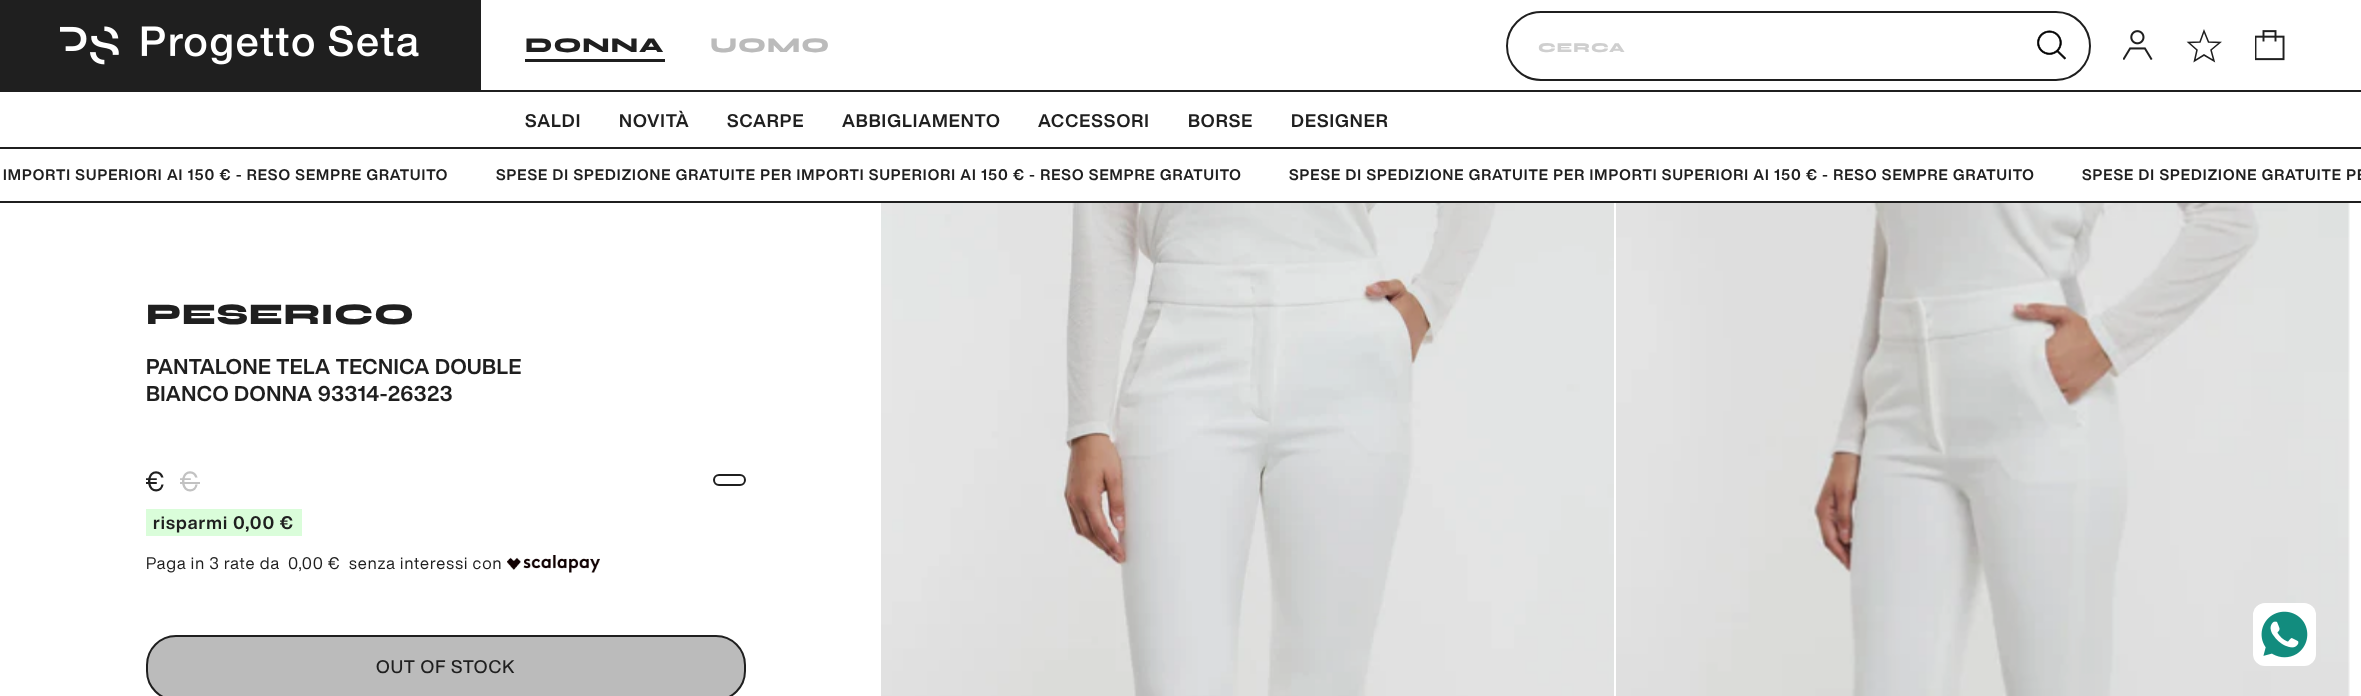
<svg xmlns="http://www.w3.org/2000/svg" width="2361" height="696">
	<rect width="100%" height="100%" fill="#FFFFFF" />
	<rect x="0" y="0" width="481" height="90" fill="#1F1F1F" />
	<image x="60" y="25" width="359" height="40" href="assets/img1.png" />
	<text x="525" y="52" font-family="Syne" font-size="21" font-weight="800" letter-spacing="1.05" fill="#1F1F1F">DONNA</text>
	<rect x="525" y="59" width="140" height="3" fill="#1F1F1F" />
	<g font-family="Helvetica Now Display" font-size="18" font-weight="700" letter-spacing="1.05" fill="#1F1F1F">
		<text x="525" y="127">SALDI</text>
		<text x="619" y="127">NOVITÀ</text>
		<text x="727" y="127">SCARPE</text>
		<text x="842" y="127">ABBIGLIAMENTO</text>
		<text x="1038" y="127">ACCESSORI</text>
		<text x="1188" y="127">BORSE</text>
		<text x="1291" y="127">DESIGNER</text>
	</g>
	<text x="710" y="52" font-family="Syne" font-size="21" font-weight="800" letter-spacing="1.05" fill="#BBBBBB">UOMO</text>
	<rect x="1507" y="12" width="583" height="68" rx="34" fill="none" stroke="#1F1F1F" stroke-width="2" />
	<text x="1538" y="52" font-family="Syne" font-size="13.5" font-weight="800" letter-spacing="1.05" fill="#CFCFCF">CERCA</text>
	<image x="2037" y="30" width="29" height="30" href="assets/img2.png" />
	<image x="2123" y="30" width="30" height="30" href="assets/img3.png" />
	<path d="M2204 31L2208.5 42L2220 42.5L2211 50L2214 61L2204 55L2194.5 61L2197 50L2188.5 42.5L2200 42Z" fill="none" stroke="#1F1F1F" stroke-width="1.5" />
	<image x="2255" y="30" width="30" height="31" href="assets/img4.png" />
	<rect x="0" y="90" width="2361" height="2" fill="#1F1F1F" />
	<rect x="0" y="147" width="2361" height="2" fill="#1F1F1F" />
	<rect x="0" y="201" width="2361" height="2" fill="#1F1F1F" />
	<g font-family="Helvetica Now Display" font-size="15" font-weight="700" letter-spacing="1.05" fill="#1F1F1F">
		<text x="3" y="180">IMPORTI SUPERIORI AI 150 € - RESO SEMPRE GRATUITO</text>
		<text x="496" y="180">SPESE DI SPEDIZIONE GRATUITE PER IMPORTI SUPERIORI AI 150 € - RESO SEMPRE GRATUITO</text>
		<text x="1289" y="180">SPESE DI SPEDIZIONE GRATUITE PER IMPORTI SUPERIORI AI 150 € - RESO SEMPRE GRATUITO</text>
		<text x="2082" y="180">SPESE DI SPEDIZIONE GRATUITE PE</text>
	</g>
	<text x="146" y="324" font-family="Syne" font-size="30" font-weight="800" letter-spacing="0.5" fill="#1F1F1F">PESERICO</text>
	<g font-family="Helvetica Now Display" font-size="21" font-weight="700" letter-spacing="0.5" fill="#1F1F1F">
		<text x="146" y="374">PANTALONE TELA TECNICA DOUBLE</text>
		<text x="146" y="401">BIANCO DONNA 93314-26323</text>
	</g>
	<text x="146" y="491" font-family="Helvetica Now Display" font-size="27" letter-spacing="1.05" fill="#1F1F1F">€</text>
	<text x="180" y="491" font-family="Helvetica Now Display" font-size="27" letter-spacing="1.05" fill="#C2C2C2">€</text>
	<rect x="180" y="482" width="20" height="2" fill="#C2C2C2" />
	<rect x="714" y="475" width="31" height="10" rx="5" fill="none" stroke="#1F1F1F" stroke-width="2" />
	<rect x="146" y="509" width="156" height="27" fill="#DAFDDA" />
	<text x="153" y="529" font-family="Helvetica Now Display" font-size="18" font-weight="700" letter-spacing="1.05" fill="#1F1F1F">risparmi 0,00 €</text>
	<g font-family="Helvetica Now Display" font-size="16.5" letter-spacing="1.05" fill="#1F1F1F">
		<text x="146" y="569">Paga in 3 rate da</text>
		<text x="288" y="569">0,00 €</text>
		<text x="349" y="569">senza interessi con</text>
	</g>
	<image x="507" y="555" width="93" height="18" href="assets/img5.png" />
	<rect x="147" y="636" width="598" height="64" rx="29" fill="#BBBBBB" stroke="#1F1F1F" stroke-width="2" />
	<text x="376" y="673" font-family="Helvetica Now Display" font-size="18" font-weight="500" letter-spacing="1.05" fill="#1F1F1F">OUT OF STOCK</text>
	<image x="881" y="203" width="733" height="493" href="assets/img6.png" />
	<image x="1616" y="203" width="734" height="493" href="assets/img7.png" />
	<rect x="2253" y="603" width="63" height="63" rx="12" fill="#FFFFFF" />
	<image x="2261" y="611" width="47" height="47" href="assets/img8.png" />
</svg>
